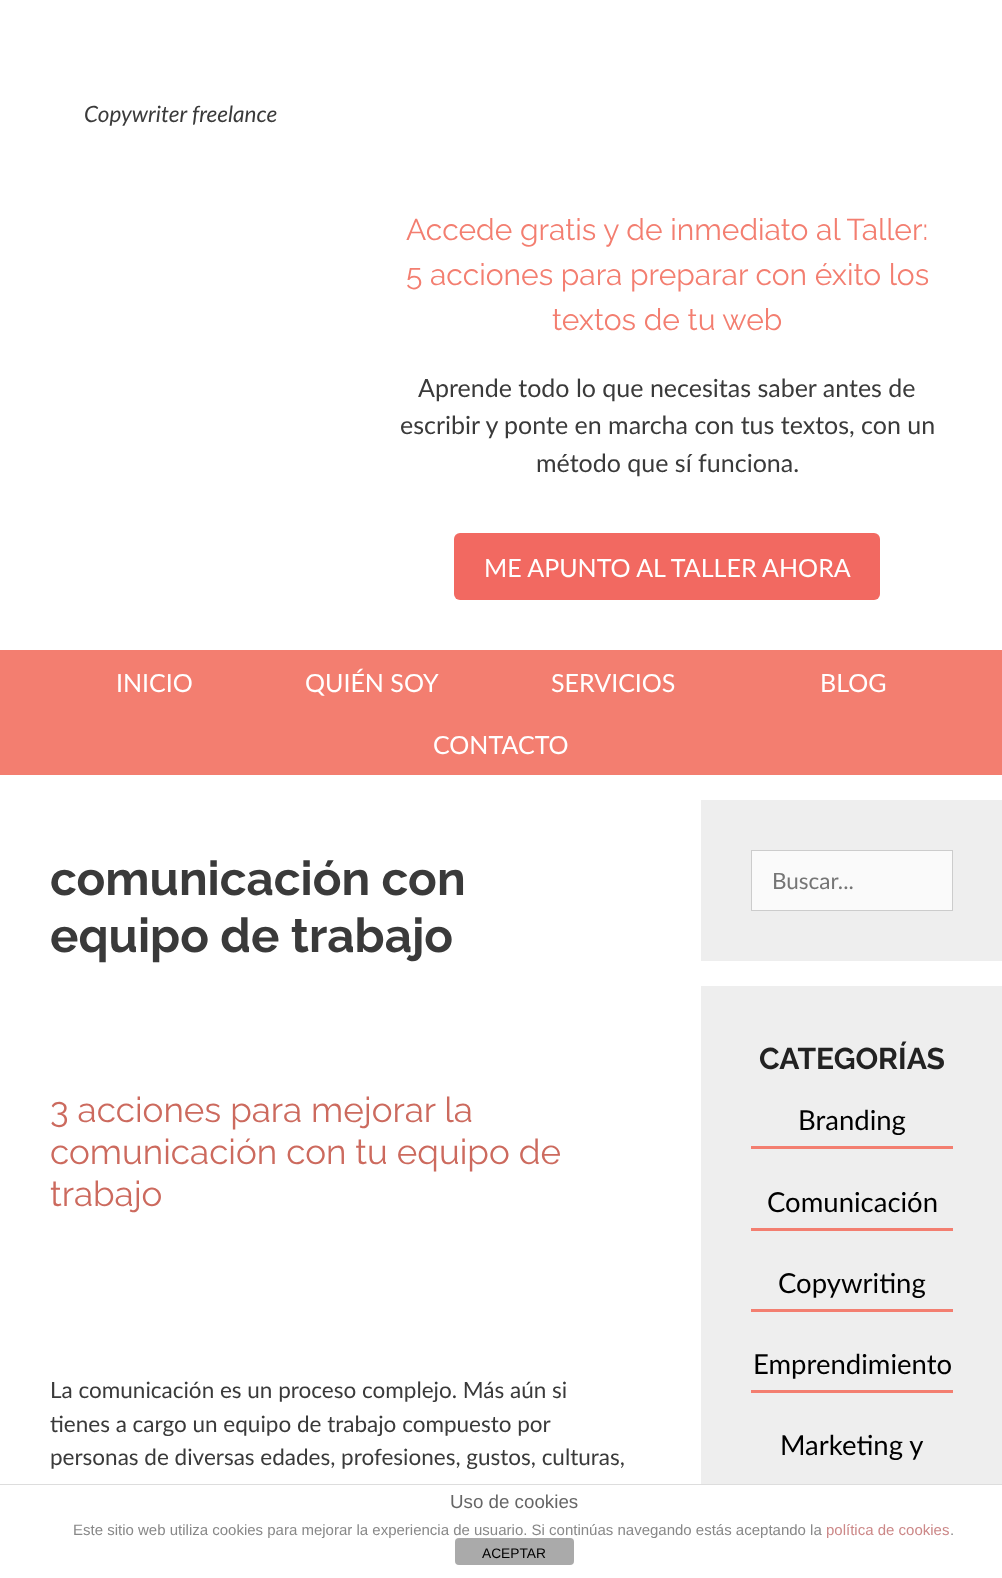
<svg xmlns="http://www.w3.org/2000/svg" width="1002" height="1578">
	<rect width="100%" height="100%" fill="#FFFFFF" />
	<text x="84" y="122" font-family="Lato" font-size="22.5" font-style="italic" fill="#3A3A3A">Copywriter freelance</text>
	<g font-family="Raleway" font-size="30" fill="#F37E70">
		<text x="406" y="240">Accede gratis y de inmediato al Taller:</text>
		<text x="406" y="285">5 acciones para preparar con éxito los</text>
		<text x="552" y="330">textos de tu web</text>
	</g>
	<g font-family="Lato" font-size="25" fill="#3A3A3A">
		<text x="418" y="397">Aprende todo lo que necesitas saber antes de</text>
		<text x="400" y="434">escribir y ponte en marcha con tus textos, con un</text>
		<text x="536" y="472">método que sí funciona.</text>
	</g>
	<rect x="454" y="533" width="426" height="67" rx="6" fill="#F26961" />
	<text x="484" y="577" font-family="Lato" font-size="25" fill="#FFFFFF">ME APUNTO AL TALLER AHORA</text>
	<rect x="0" y="650" width="1002" height="125" fill="#F37E70" />
	<g font-family="Lato" font-size="25" fill="#FFFFFF">
		<text x="116" y="692">INICIO</text>
		<text x="305" y="692">QUIÉN SOY</text>
		<text x="551" y="692">SERVICIOS</text>
		<text x="820" y="692">BLOG</text>
		<text x="433" y="754">CONTACTO</text>
	</g>
	<g font-family="Raleway" font-size="47.5" font-weight="700" fill="#3A3A3A">
		<text x="50" y="895">comunicación con</text>
		<text x="50" y="952">equipo de trabajo</text>
	</g>
	<g font-family="Raleway" font-size="35" fill="#CC6A5E">
		<text x="50" y="1122">3 acciones para mejorar la</text>
		<text x="50" y="1164">comunicación con tu equipo de</text>
		<text x="50" y="1206">trabajo</text>
	</g>
	<g font-family="Lato" font-size="22.5" fill="#3A3A3A">
		<text x="50" y="1398">La comunicación es un proceso complejo. Más aún si</text>
		<text x="50" y="1432">tienes a cargo un equipo de trabajo compuesto por</text>
		<text x="50" y="1465">personas de diversas edades, profesiones, gustos, culturas,</text>
	</g>
	<rect x="701" y="800" width="301" height="161" fill="#EEEEEE" />
	<rect x="751.5" y="850.5" width="201" height="60" fill="#FAFAFA" stroke="#CCCCCC" />
	<text x="772" y="889" font-family="Lato" font-size="22.5" fill="#757575">Buscar...</text>
	<rect x="701" y="986" width="301" height="498" fill="#EEEEEE" />
	<text x="759" y="1069" font-family="Raleway" font-size="30" font-weight="700" fill="#222222">CATEGORÍAS</text>
	<rect x="751" y="1146" width="202" height="3" fill="#F37E70" />
	<text x="798" y="1130" font-family="Lato" font-size="27.5" fill="#000000">Branding</text>
	<rect x="751" y="1228" width="202" height="3" fill="#F37E70" />
	<text x="767" y="1212" font-family="Lato" font-size="27.5" fill="#000000">Comunicación</text>
	<rect x="751" y="1309" width="202" height="3" fill="#F37E70" />
	<text x="778" y="1293" font-family="Lato" font-size="27.5" fill="#000000">Copywriting</text>
	<rect x="751" y="1390" width="202" height="3" fill="#F37E70" />
	<g font-family="Lato" font-size="27.5" fill="#000000">
		<text x="753" y="1374">Emprendimiento</text>
		<text x="780" y="1455">Marketing y</text>
	</g>
	<rect x="0" y="1484" width="1002" height="1" fill="#DDDDDD" />
	<text x="450" y="1508" font-family="Liberation Sans" font-size="18.75" fill="#666666">Uso de cookies</text>
	<rect x="455" y="1538" width="119" height="27" rx="4" fill="#AAAAAA" />
	<text x="73" y="1535" font-family="Liberation Sans" font-size="15" fill="#888888">Este sitio web utiliza cookies para mejorar la experiencia de usuario. Si continúas navegando estás aceptando la</text>
	<text x="826" y="1535" font-family="Liberation Sans" font-size="15" fill="#CC8888">política de cookies</text>
	<text x="950" y="1535" font-family="Liberation Sans" font-size="15" fill="#888888">.</text>
	<text x="482" y="1558" font-family="Liberation Sans" font-size="13.75" fill="#000000">ACEPTAR</text>
</svg>
